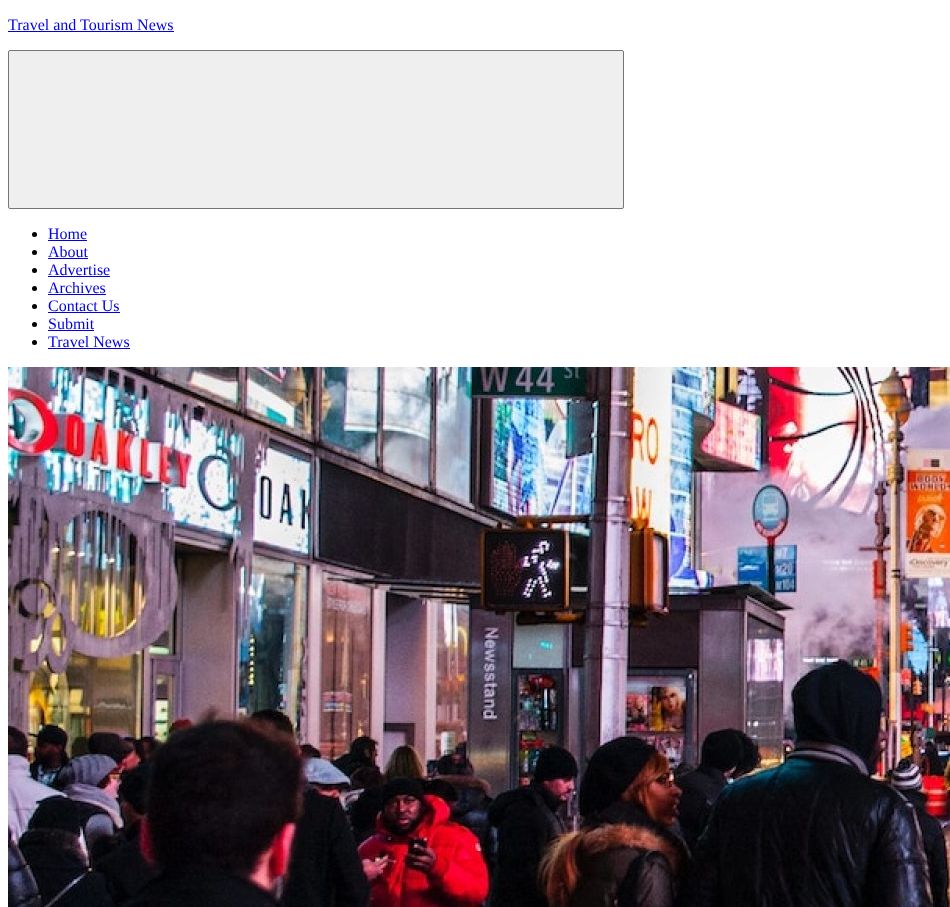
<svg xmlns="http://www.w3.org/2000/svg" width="950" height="907">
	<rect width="100%" height="100%" fill="#FFFFFF" />
	<text x="8" y="30" font-family="Liberation Serif" font-size="16" fill="#0000EE">Travel and Tourism News</text>
	<rect x="8" y="31" width="166" height="1" fill="#0000EE" />
	<rect x="8.5" y="50.5" width="615" height="158" rx="1.5" fill="#EFEFEF" stroke="#767676" />
	<circle cx="34.5" cy="234.5" r="2.5" fill="#000000" />
	<text x="48" y="239" font-family="Liberation Serif" font-size="16" fill="#0000EE">Home</text>
	<rect x="48" y="240" width="39" height="1" fill="#0000EE" />
	<circle cx="34.5" cy="252.5" r="2.5" fill="#000000" />
	<text x="48" y="257" font-family="Liberation Serif" font-size="16" fill="#0000EE">About</text>
	<rect x="48" y="258" width="40" height="1" fill="#0000EE" />
	<circle cx="34.5" cy="270.5" r="2.5" fill="#000000" />
	<text x="48" y="275" font-family="Liberation Serif" font-size="16" fill="#0000EE">Advertise</text>
	<rect x="48" y="276" width="62" height="1" fill="#0000EE" />
	<circle cx="34.5" cy="288.5" r="2.5" fill="#000000" />
	<text x="48" y="293" font-family="Liberation Serif" font-size="16" fill="#0000EE">Archives</text>
	<rect x="48" y="294" width="58" height="1" fill="#0000EE" />
	<circle cx="34.5" cy="306.5" r="2.5" fill="#000000" />
	<text x="48" y="311" font-family="Liberation Serif" font-size="16" fill="#0000EE">Contact Us</text>
	<rect x="48" y="312" width="72" height="1" fill="#0000EE" />
	<circle cx="34.5" cy="324.5" r="2.5" fill="#000000" />
	<text x="48" y="329" font-family="Liberation Serif" font-size="16" fill="#0000EE">Submit</text>
	<rect x="48" y="330" width="46" height="1" fill="#0000EE" />
	<circle cx="34.5" cy="342.5" r="2.5" fill="#000000" />
	<text x="48" y="347" font-family="Liberation Serif" font-size="16" fill="#0000EE">Travel News</text>
	<rect x="48" y="348" width="82" height="1" fill="#0000EE" />
	<image x="8" y="367" width="942" height="540" href="assets/img1.png" />
</svg>
